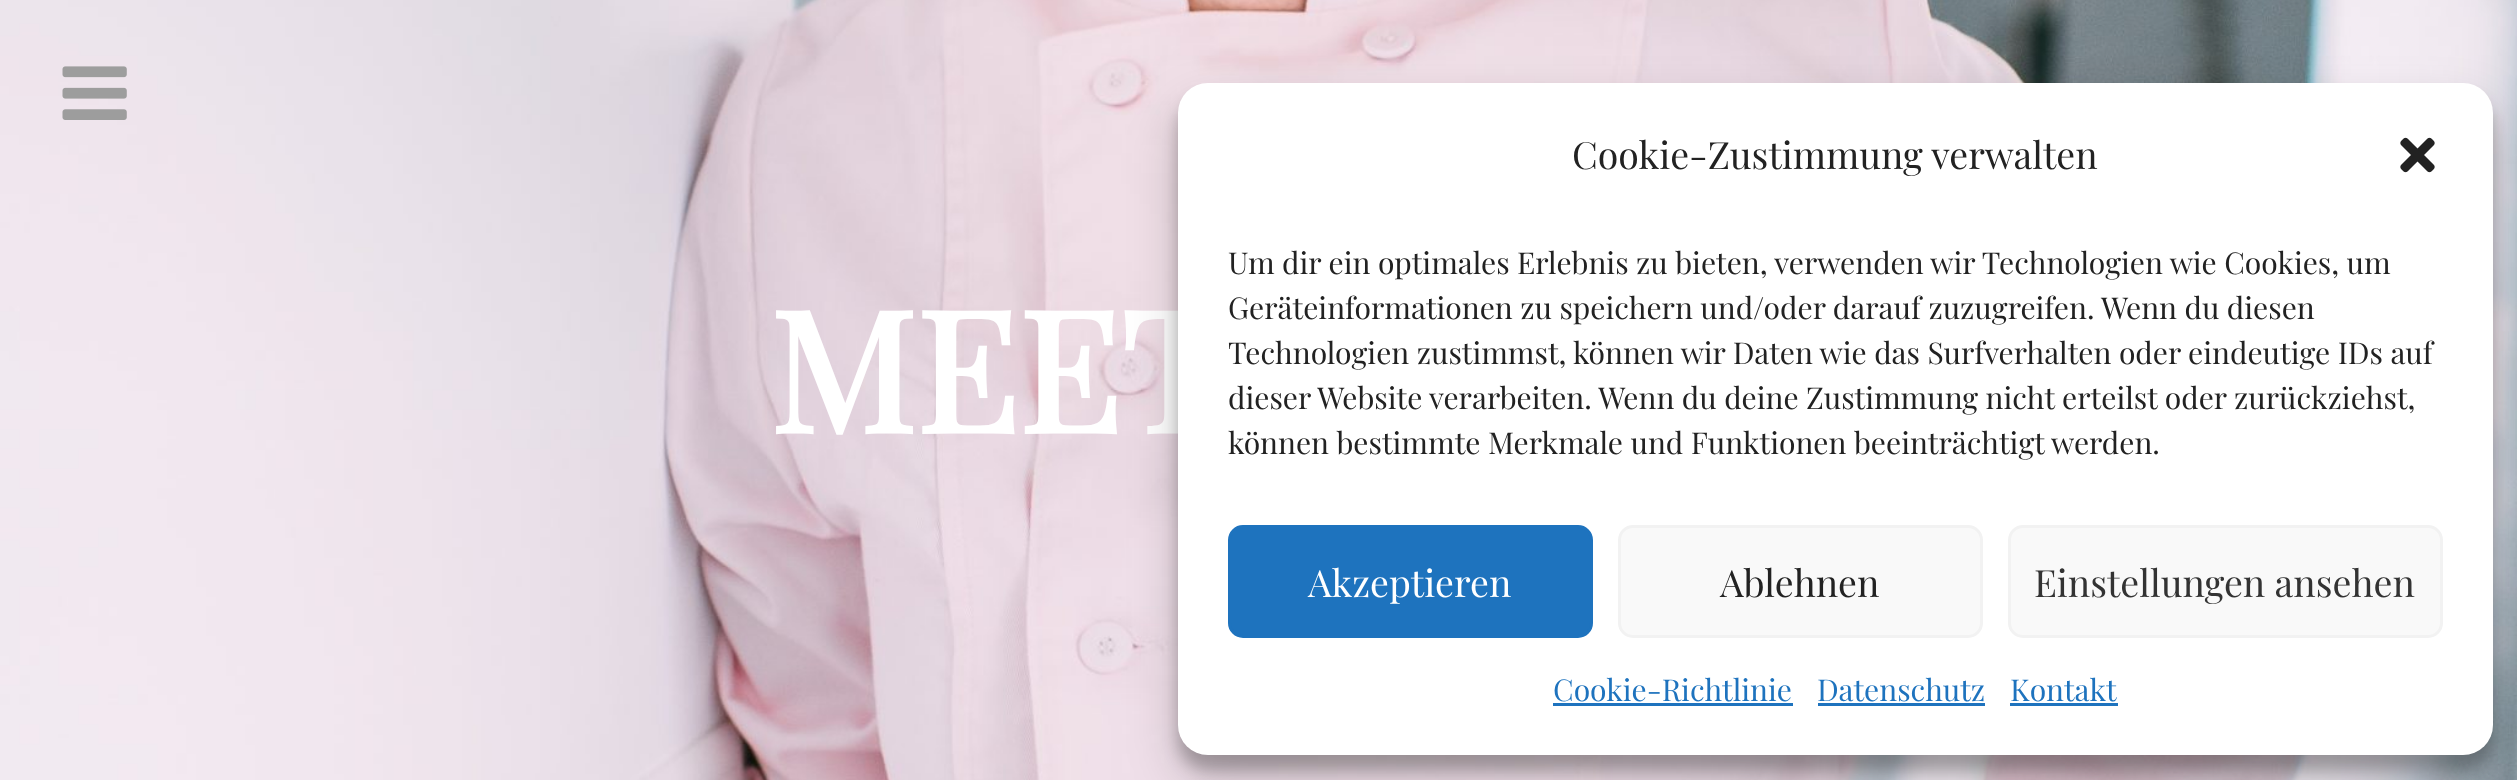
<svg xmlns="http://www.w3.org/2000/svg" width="2517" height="780">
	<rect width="100%" height="100%" fill="#FFFFFF" />
	<image x="0" y="0" width="2517" height="780" href="assets/img2.png" />
	<image x="62" y="66" width="65" height="54" href="assets/img1.png" />
	<text x="769" y="434" font-family="Playfair Display" font-size="168" font-weight="700" fill="#FFFFFF">MEET</text>
	<rect x="1178" y="98" width="1315" height="672" rx="30" fill="#000000" fill-opacity="0.23" filter="blur(7.5px)" />
	<rect x="1178" y="108" width="1315" height="672" rx="30" fill="#000000" fill-opacity="0.19" filter="blur(25px)" />
	<rect x="1178" y="83" width="1315" height="672" rx="30" fill="#FFFFFF" />
	<text x="1572" y="169" font-family="Playfair Display" font-size="37.5" fill="#222222">Cookie-Zustimmung verwalten</text>
	<image x="2400" y="137" width="35" height="36" href="assets/img3.png" />
	<g font-family="Playfair Display" font-size="30" fill="#222222">
		<text x="1228" y="274">Um dir ein optimales Erlebnis zu bieten, verwenden wir Technologien wie Cookies, um</text>
		<text x="1228" y="319">Geräteinformationen zu speichern und/oder darauf zuzugreifen. Wenn du diesen</text>
		<text x="1228" y="364">Technologien zustimmst, können wir Daten wie das Surfverhalten oder eindeutige IDs auf</text>
		<text x="1228" y="409">dieser Website verarbeiten. Wenn du deine Zustimmung nicht erteilst oder zurückziehst,</text>
		<text x="1228" y="454">können bestimmte Merkmale und Funktionen beeinträchtigt werden.</text>
	</g>
	<rect x="1229.5" y="526.5" width="362" height="110" rx="13.5" fill="#1E73BE" stroke="#1E73BE" stroke-width="3" />
	<text x="1308" y="597" font-family="Playfair Display" font-size="37.5" fill="#FFFFFF">Akzeptieren</text>
	<rect x="1619.5" y="526.5" width="362" height="110" rx="13.5" fill="#F9F9F9" stroke="#F2F2F2" stroke-width="3" />
	<text x="1720" y="597" font-family="Playfair Display" font-size="37.5" fill="#222222">Ablehnen</text>
	<rect x="2009.5" y="526.5" width="432" height="110" rx="13.5" fill="#F9F9F9" stroke="#F2F2F2" stroke-width="3" />
	<text x="2034" y="597" font-family="Playfair Display" font-size="37.5" fill="#333333">Einstellungen ansehen</text>
	<text x="1553" y="701" font-family="Playfair Display" font-size="30" fill="#1E73BE">Cookie-Richtlinie</text>
	<rect x="1553" y="703" width="240" height="3" fill="#1E73BE" />
	<text x="1817" y="701" font-family="Playfair Display" font-size="30" fill="#1E73BE">Datenschutz</text>
	<rect x="1818" y="703" width="167" height="3" fill="#1E73BE" />
	<text x="2010" y="701" font-family="Playfair Display" font-size="30" fill="#1E73BE">Kontakt</text>
	<rect x="2010" y="703" width="108" height="3" fill="#1E73BE" />
</svg>
